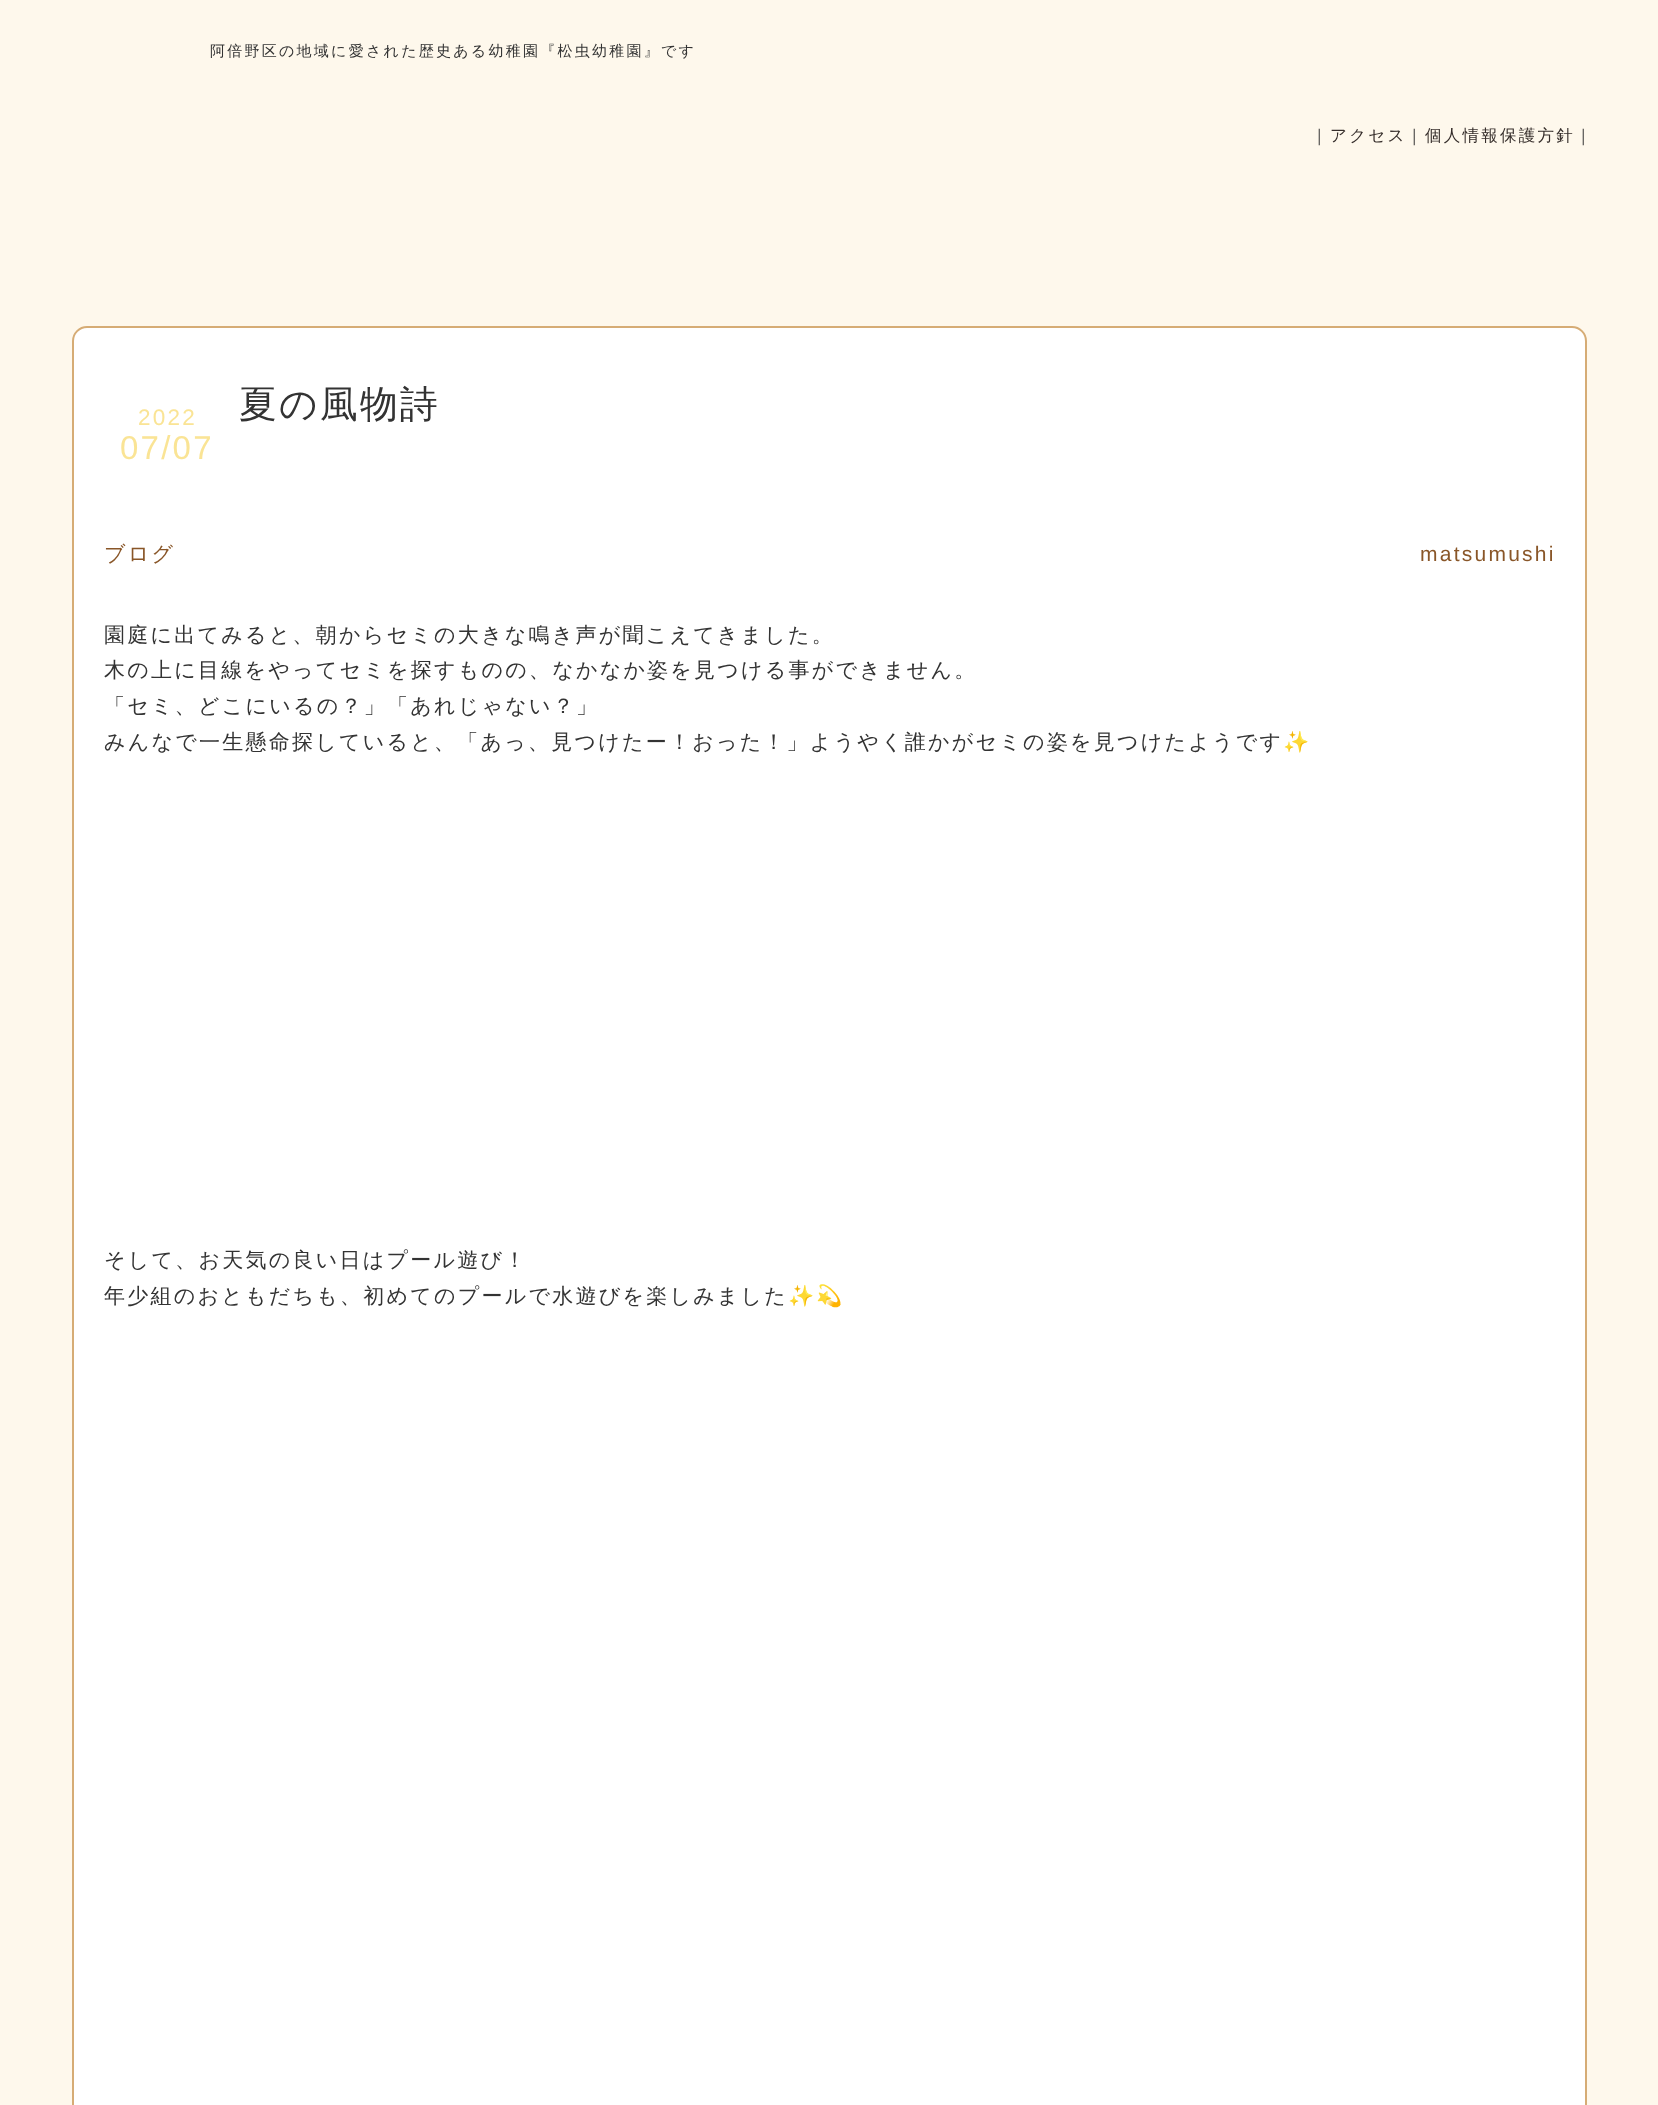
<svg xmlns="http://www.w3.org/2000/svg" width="1658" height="2105">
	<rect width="100%" height="100%" fill="#FEF8EC" />
	<text x="210" y="56" font-family="WenQuanYi Zen Hei" font-size="15" font-weight="500" letter-spacing="2.25" fill="#333333">阿倍野区の地域に愛された歴史ある幼稚園『松虫幼稚園』です</text>
	<text x="1311" y="141" font-family="WenQuanYi Zen Hei" font-size="16.5" font-weight="500" letter-spacing="2.25" fill="#333333">｜</text>
	<text x="1330" y="141" font-family="WenQuanYi Zen Hei" font-size="16.5" font-weight="500" letter-spacing="2.25" fill="#362E2B">アクセス</text>
	<text x="1406" y="141" font-family="WenQuanYi Zen Hei" font-size="16.5" font-weight="500" letter-spacing="2.25" fill="#333333">｜</text>
	<text x="1425" y="141" font-family="WenQuanYi Zen Hei" font-size="16.5" font-weight="500" letter-spacing="2.25" fill="#362E2B">個人情報保護方針</text>
	<text x="1575" y="141" font-family="WenQuanYi Zen Hei" font-size="16.5" font-weight="500" letter-spacing="2.25" fill="#333333">｜</text>
	<rect x="73" y="327" width="1513" height="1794" rx="14" fill="#FFFFFF" stroke="#D6AC75" stroke-width="2" />
	<text x="239" y="417" font-family="WenQuanYi Zen Hei" font-size="37.75" font-weight="500" letter-spacing="2.25" fill="#333333">夏の風物詩</text>
	<text x="138" y="425" font-family="Liberation Sans" font-size="22.5" letter-spacing="2.25" fill="#FAE495">2022</text>
	<text x="120" y="459" font-family="Liberation Sans" font-size="33" letter-spacing="2.25" fill="#FAE495">07/07</text>
	<text x="104" y="561" font-family="WenQuanYi Zen Hei" font-size="21" font-weight="500" letter-spacing="2.25" fill="#895628">ブログ</text>
	<text x="1420" y="561" font-family="Liberation Sans" font-size="21" letter-spacing="2.25" fill="#895628">matsumushi</text>
	<g font-family="WenQuanYi Zen Hei" font-size="21" font-weight="500" letter-spacing="2.25" fill="#333333">
		<text x="104" y="642">園庭に出てみると、朝からセミの大きな鳴き声が聞こえてきました。</text>
		<text x="104" y="677">木の上に目線をやってセミを探すものの、なかなか姿を見つける事ができません。</text>
		<text x="104" y="713">「セミ、どこにいるの？」「あれじゃない？」</text>
		<text x="104" y="749">みんなで一生懸命探していると、「あっ、見つけたー！おった！」ようやく誰かがセミの姿を見つけたようです</text>
	</g>
	<text x="1283" y="749" font-family="Noto Color Emoji" font-size="21" letter-spacing="2.25" fill="#333333">✨</text>
	<g font-family="WenQuanYi Zen Hei" font-size="21" font-weight="500" letter-spacing="2.25" fill="#333333">
		<text x="104" y="1267">そして、お天気の良い日はプール遊び！</text>
		<text x="104" y="1303">年少組のおともだちも、初めてのプールで水遊びを楽しみました</text>
	</g>
	<text x="788" y="1303" font-family="Noto Color Emoji" font-size="21" letter-spacing="2.25" fill="#333333">✨💫</text>
</svg>
